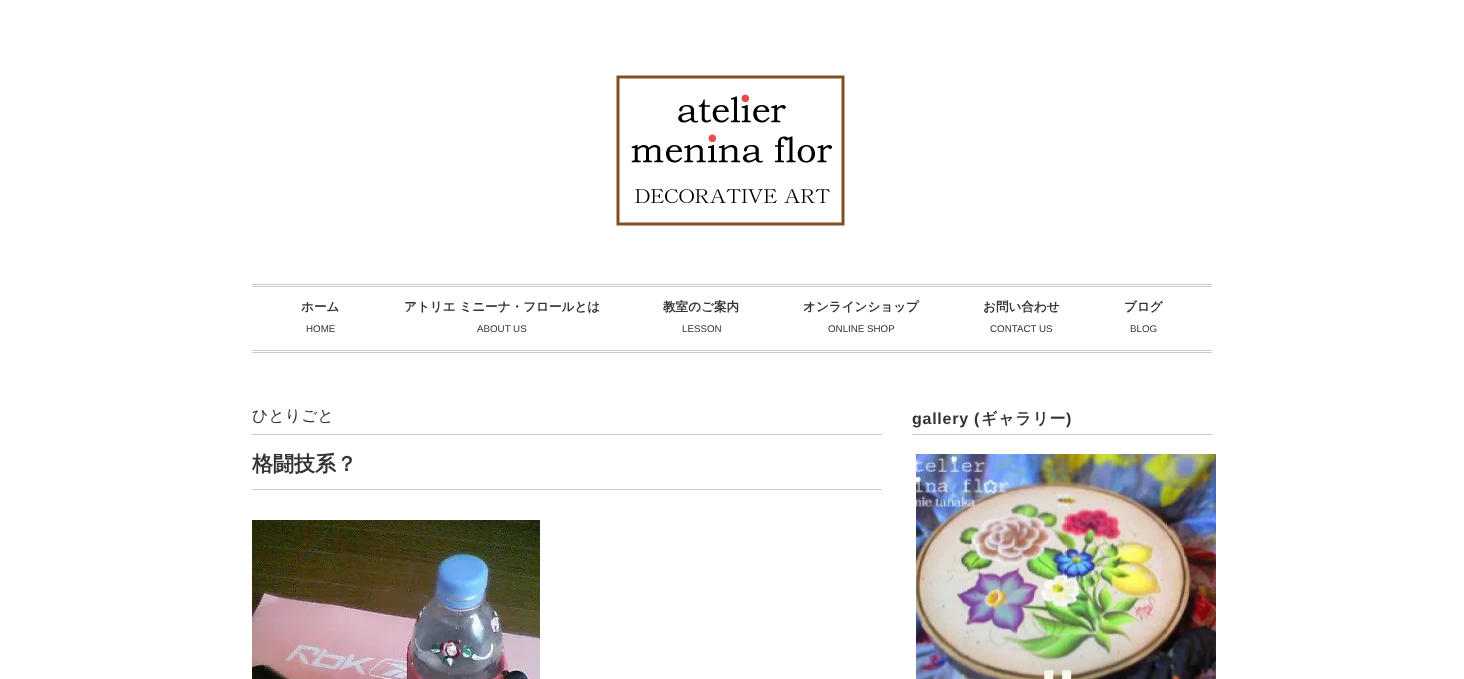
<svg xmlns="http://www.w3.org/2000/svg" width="1464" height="679">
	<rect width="100%" height="100%" fill="#FFFFFF" />
	<image x="616" y="75" width="229" height="151" href="assets/img1.png" />
	<rect x="252" y="284" width="960" height="1" fill="#CCCCCC" />
	<rect x="252" y="286" width="960" height="1" fill="#CCCCCC" />
	<rect x="252" y="350" width="960" height="1" fill="#CCCCCC" />
	<rect x="252" y="352" width="960" height="1" fill="#CCCCCC" />
	<text x="301" y="311" font-family="WenQuanYi Zen Hei" font-size="12.6" font-weight="700" fill="#333333">ホーム</text>
	<text x="306" y="332" font-family="Liberation Sans" font-size="9.75" fill="#333333">HOME</text>
	<text x="404" y="311" font-family="WenQuanYi Zen Hei" font-size="12.6" font-weight="700" fill="#333333">アトリエ ミニーナ・フロールとは</text>
	<text x="477" y="332" font-family="Liberation Sans" font-size="9.75" fill="#333333">ABOUT US</text>
	<text x="663" y="311" font-family="WenQuanYi Zen Hei" font-size="12.6" font-weight="700" fill="#333333">教室のご案内</text>
	<text x="682" y="332" font-family="Liberation Sans" font-size="9.75" fill="#333333">LESSON</text>
	<text x="803" y="311" font-family="WenQuanYi Zen Hei" font-size="12.6" font-weight="700" fill="#333333">オンラインショップ</text>
	<text x="828" y="332" font-family="Liberation Sans" font-size="9.75" fill="#333333">ONLINE SHOP</text>
	<text x="983" y="311" font-family="WenQuanYi Zen Hei" font-size="12.6" font-weight="700" fill="#333333">お問い合わせ</text>
	<text x="990" y="332" font-family="Liberation Sans" font-size="9.75" fill="#333333">CONTACT US</text>
	<text x="1124" y="311" font-family="WenQuanYi Zen Hei" font-size="12.6" font-weight="700" fill="#333333">ブログ</text>
	<text x="1130" y="332" font-family="Liberation Sans" font-size="9.75" fill="#333333">BLOG</text>
	<text x="252" y="421" font-family="WenQuanYi Zen Hei" font-size="16" font-weight="500" fill="#333333">ひとりごと</text>
	<rect x="252" y="434" width="630" height="1" fill="#CCCCCC" />
	<rect x="252" y="489" width="630" height="1" fill="#CCCCCC" />
	<text x="252" y="471" font-family="WenQuanYi Zen Hei" font-size="21" font-weight="700" fill="#333333">格闘技系？</text>
	<image x="252" y="520" width="288" height="159" href="assets/img2.png" />
	<rect x="912" y="434" width="300" height="1" fill="#CCCCCC" />
	<text x="912" y="424" font-family="Liberation Sans" font-size="16" font-weight="700" letter-spacing="0.75" fill="#333333">gallery (</text>
	<text x="981" y="424" font-family="WenQuanYi Zen Hei" font-size="16" font-weight="700" letter-spacing="0.75" fill="#333333">ギャラリー</text>
	<text x="1066" y="424" font-family="Liberation Sans" font-size="16" font-weight="700" letter-spacing="0.75" fill="#333333">)</text>
	<image x="916" y="454" width="300" height="225" href="assets/img3.png" />
</svg>
